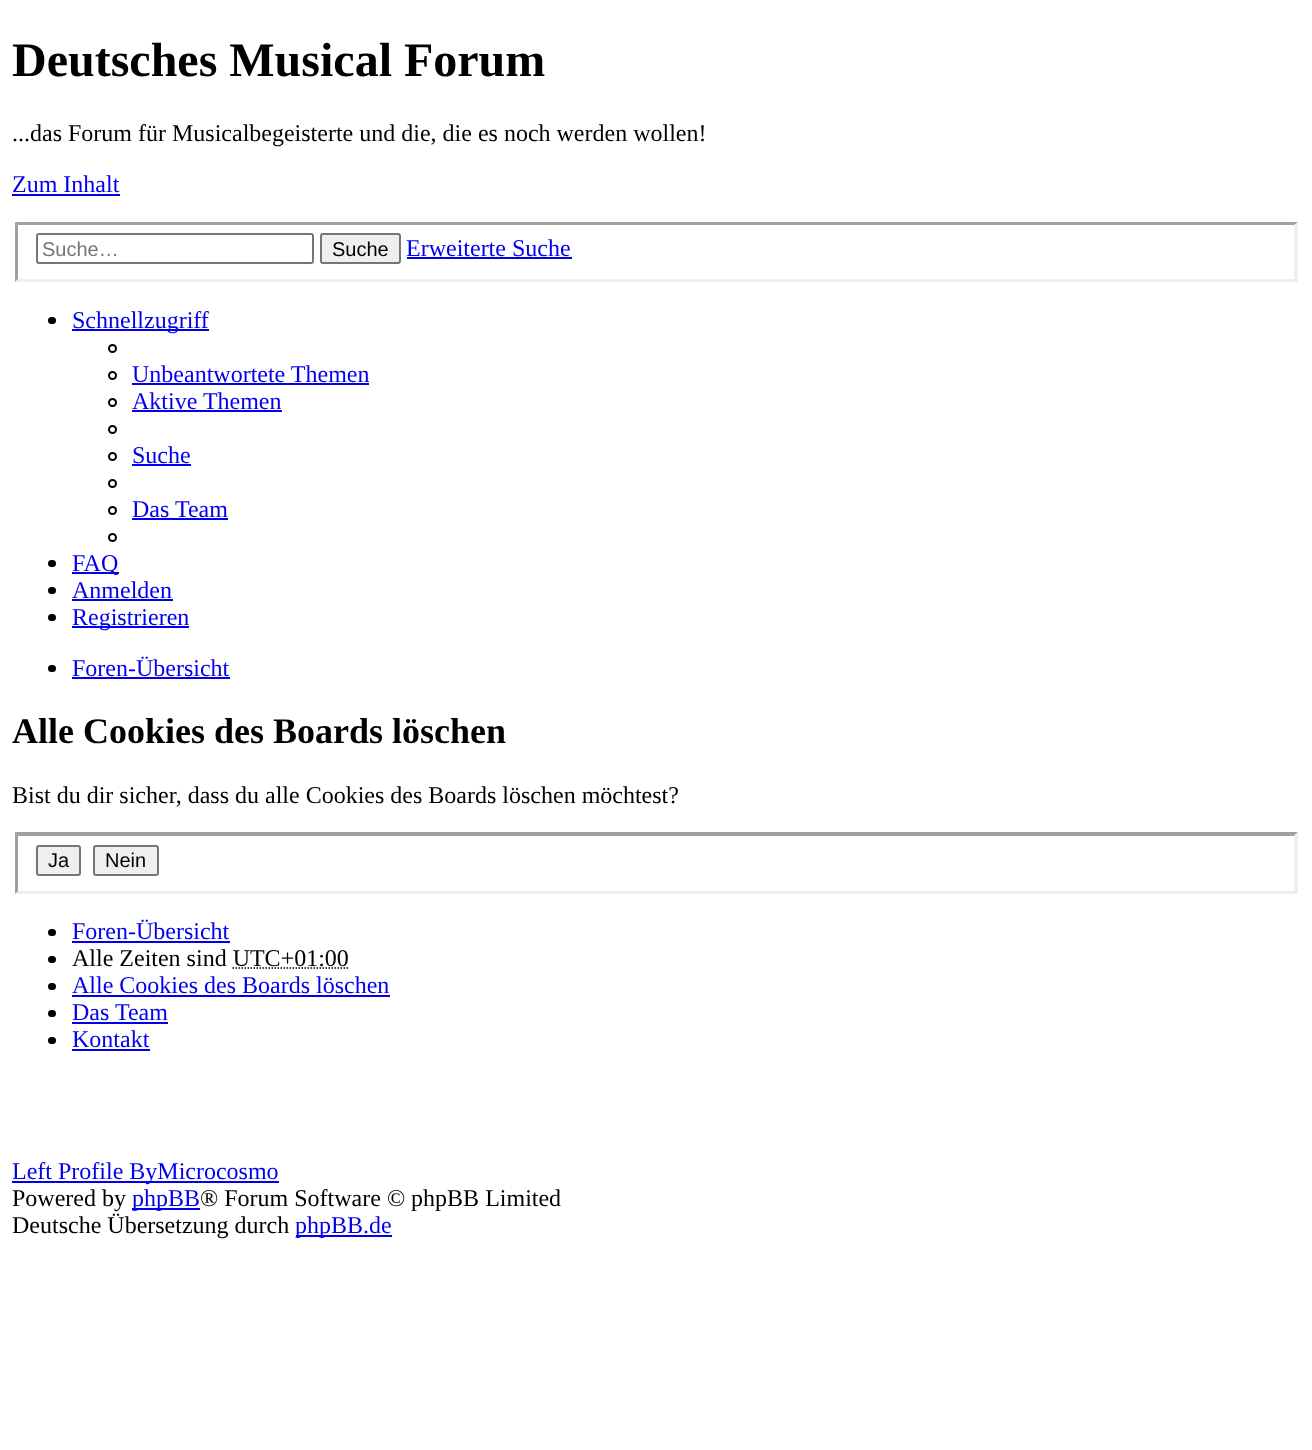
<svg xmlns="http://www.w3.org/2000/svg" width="1312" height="1450">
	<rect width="100%" height="100%" fill="#FFFFFF" />
	<text x="12" y="76" font-family="Liberation Serif" font-size="48" font-weight="700" fill="#000000">Deutsches Musical Forum</text>
	<text x="12" y="141" font-family="Liberation Serif" font-size="24" fill="#000000">...das Forum für Musicalbegeisterte und die, die es noch werden wollen!</text>
	<text x="12" y="192" font-family="Liberation Serif" font-size="24" fill="#0000EE">Zum Inhalt</text>
	<rect x="12" y="194" width="108" height="2" fill="#0000EE" />
	<path d="M15 222H1298L1294 225H18Z" fill="#9F9F9F" />
	<path d="M1298 222V282L1294 279V225Z" fill="#EFEFEF" />
	<path d="M1298 282H15L18 279H1294Z" fill="#EFEFEF" />
	<path d="M15 282V222L18 225V279Z" fill="#9F9F9F" />
	<rect x="37" y="234" width="276" height="29" rx="2" fill="none" stroke="#767676" stroke-width="2" />
	<text x="42" y="256" font-family="Liberation Sans" font-size="20" fill="#757575">Suche…</text>
	<rect x="321" y="234" width="79" height="29" rx="2" fill="#EFEFEF" stroke="#767676" stroke-width="2" />
	<text x="332" y="256" font-family="Liberation Sans" font-size="20" fill="#000000">Suche</text>
	<text x="406" y="256" font-family="Liberation Serif" font-size="24" fill="#0000EE">Erweiterte Suche</text>
	<rect x="407" y="257" width="165" height="2" fill="#0000EE" />
	<rect x="48" y="317" width="8" height="7" rx="3.5" fill="#000000" />
	<rect x="72" y="329" width="137" height="2" fill="#0000EE" />
	<text x="72" y="328" font-family="Liberation Serif" font-size="24" fill="#0000EE">Schnellzugriff</text>
	<circle cx="112.5" cy="348.5" r="3.5" fill="none" stroke="#000000" stroke-width="2" />
	<circle cx="112.5" cy="375.5" r="3.5" fill="none" stroke="#000000" stroke-width="2" />
	<text x="132" y="382" font-family="Liberation Serif" font-size="24" fill="#0000EE">Unbeantwortete Themen</text>
	<rect x="132" y="383" width="237" height="2" fill="#0000EE" />
	<circle cx="112.5" cy="402.5" r="3.5" fill="none" stroke="#000000" stroke-width="2" />
	<text x="132" y="409" font-family="Liberation Serif" font-size="24" fill="#0000EE">Aktive Themen</text>
	<rect x="132" y="410" width="150" height="2" fill="#0000EE" />
	<circle cx="112.5" cy="429.5" r="3.5" fill="none" stroke="#000000" stroke-width="2" />
	<circle cx="112.5" cy="456.5" r="3.5" fill="none" stroke="#000000" stroke-width="2" />
	<text x="132" y="463" font-family="Liberation Serif" font-size="24" fill="#0000EE">Suche</text>
	<rect x="132" y="464" width="59" height="2" fill="#0000EE" />
	<circle cx="112.5" cy="483.5" r="3.5" fill="none" stroke="#000000" stroke-width="2" />
	<circle cx="112.5" cy="510.5" r="3.5" fill="none" stroke="#000000" stroke-width="2" />
	<text x="132" y="517" font-family="Liberation Serif" font-size="24" fill="#0000EE">Das Team</text>
	<rect x="132" y="518" width="96" height="2" fill="#0000EE" />
	<circle cx="112.5" cy="537.5" r="3.5" fill="none" stroke="#000000" stroke-width="2" />
	<rect x="48" y="560" width="8" height="7" rx="3.5" fill="#000000" />
	<rect x="72" y="572" width="47" height="2" fill="#0000EE" />
	<text x="72" y="571" font-family="Liberation Serif" font-size="24" fill="#0000EE">FAQ</text>
	<rect x="48" y="587" width="8" height="7" rx="3.5" fill="#000000" />
	<text x="72" y="598" font-family="Liberation Serif" font-size="24" fill="#0000EE">Anmelden</text>
	<rect x="72" y="599" width="101" height="2" fill="#0000EE" />
	<rect x="48" y="614" width="8" height="7" rx="3.5" fill="#000000" />
	<rect x="72" y="626" width="117" height="2" fill="#0000EE" />
	<text x="72" y="625" font-family="Liberation Serif" font-size="24" fill="#0000EE">Registrieren</text>
	<rect x="48" y="665" width="8" height="7" rx="3.5" fill="#000000" />
	<text x="72" y="676" font-family="Liberation Serif" font-size="24" fill="#0000EE">Foren-Übersicht</text>
	<rect x="72" y="677" width="158" height="2" fill="#0000EE" />
	<text x="12" y="743" font-family="Liberation Serif" font-size="36" font-weight="700" fill="#000000">Alle Cookies des Boards löschen</text>
	<text x="12" y="803" font-family="Liberation Serif" font-size="24" fill="#000000">Bist du dir sicher, dass du alle Cookies des Boards löschen möchtest?</text>
	<path d="M15 832H1298L1294 836H18Z" fill="#9F9F9F" />
	<path d="M1298 832V894L1294 891V836Z" fill="#EFEFEF" />
	<path d="M1298 894H15L18 891H1294Z" fill="#EFEFEF" />
	<path d="M15 894V832L18 836V891Z" fill="#9F9F9F" />
	<rect x="37" y="846" width="43" height="29" rx="2" fill="#EFEFEF" stroke="#767676" stroke-width="2" />
	<text x="48" y="867" font-family="Liberation Sans" font-size="20" fill="#000000">Ja</text>
	<rect x="94" y="846" width="64" height="29" rx="2" fill="#EFEFEF" stroke="#767676" stroke-width="2" />
	<text x="105" y="867" font-family="Liberation Sans" font-size="20" fill="#000000">Nein</text>
	<rect x="48" y="929" width="8" height="7" rx="3.5" fill="#000000" />
	<text x="72" y="939" font-family="Liberation Serif" font-size="24" fill="#0000EE">Foren-Übersicht</text>
	<rect x="72" y="941" width="158" height="2" fill="#0000EE" />
	<rect x="48" y="956" width="8" height="7" rx="3.5" fill="#000000" />
	<text x="72" y="966" font-family="Liberation Serif" font-size="24" fill="#000000">Alle Zeiten sind UTC+01:00</text>
	<path d="M232.5 968H349" fill="none" stroke="#000000" stroke-width="1.5" stroke-dasharray="1.5 1.5" />
	<rect x="48" y="983" width="8" height="7" rx="3.5" fill="#000000" />
	<text x="72" y="993" font-family="Liberation Serif" font-size="24" fill="#0000EE">Alle Cookies des Boards löschen</text>
	<rect x="72" y="995" width="318" height="2" fill="#0000EE" />
	<rect x="48" y="1010" width="8" height="7" rx="3.5" fill="#000000" />
	<text x="72" y="1020" font-family="Liberation Serif" font-size="24" fill="#0000EE">Das Team</text>
	<rect x="72" y="1022" width="96" height="2" fill="#0000EE" />
	<rect x="48" y="1037" width="8" height="7" rx="3.5" fill="#000000" />
	<text x="72" y="1047" font-family="Liberation Serif" font-size="24" fill="#0000EE">Kontakt</text>
	<rect x="72" y="1049" width="78" height="2" fill="#0000EE" />
	<rect x="12" y="1181" width="267" height="2" fill="#0000EE" />
	<text x="12" y="1179" font-family="Liberation Serif" font-size="24" fill="#0000EE">Left Profile ByMicrocosmo</text>
	<text x="12" y="1206" font-family="Liberation Serif" font-size="24" fill="#000000">Powered by</text>
	<rect x="132" y="1208" width="68" height="2" fill="#0000EE" />
	<text x="132" y="1206" font-family="Liberation Serif" font-size="24" fill="#0000EE">phpBB</text>
	<g font-family="Liberation Serif" font-size="24" fill="#000000">
		<text x="200" y="1206">® Forum Software © phpBB Limited</text>
		<text x="12" y="1233">Deutsche Übersetzung durch</text>
	</g>
	<rect x="296" y="1235" width="96" height="2" fill="#0000EE" />
	<text x="295" y="1233" font-family="Liberation Serif" font-size="24" fill="#0000EE">phpBB.de</text>
</svg>
